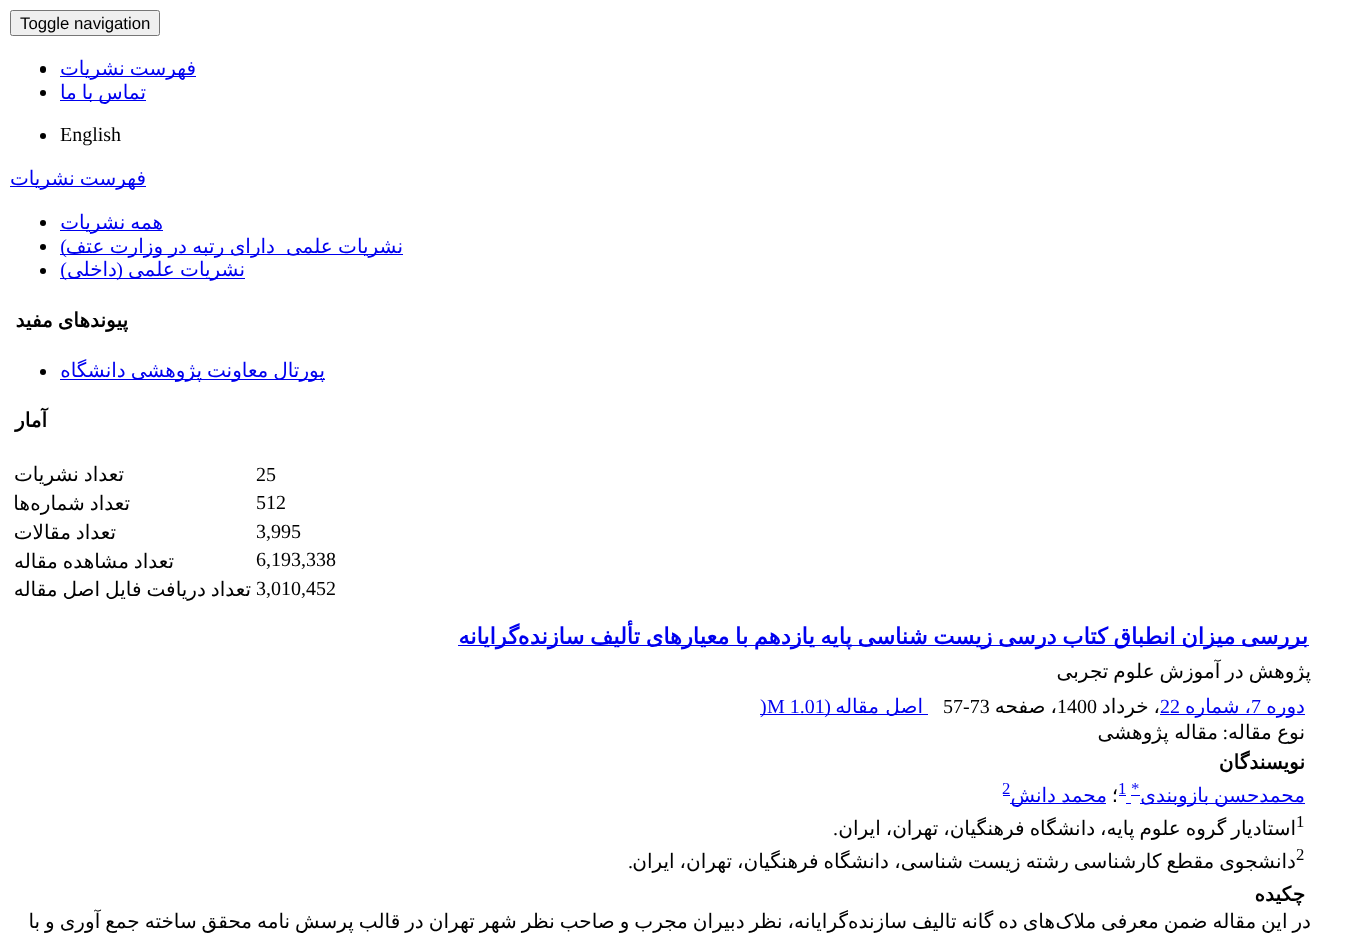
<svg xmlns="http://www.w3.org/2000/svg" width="1349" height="936">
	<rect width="100%" height="100%" fill="#FFFFFF" />
	<rect x="10.5" y="10.5" width="149" height="25" rx="2" fill="#EFEFEF" stroke="#767676" />
	<text x="20" y="29" font-family="Liberation Sans" font-size="16.75" fill="#000000">Toggle navigation</text>
	<rect x="60" y="76" width="136" height="1" fill="#0000EE" />
	<text x="196" y="75" word-spacing="-1.4" font-family="DejaVu Sans" font-size="20" direction="rtl" fill="#0000EE">فهرست نشریات</text>
	<rect x="40" y="66" width="6" height="7" rx="3" fill="#000000" />
	<rect x="60" y="100" width="86" height="1" fill="#0000EE" />
	<text x="146" y="99" word-spacing="-1.4" font-family="DejaVu Sans" font-size="20" direction="rtl" fill="#0000EE">تماس با ما</text>
	<circle cx="43" cy="93" r="3" fill="#000000" />
	<text x="60" y="141" font-family="Liberation Serif" font-size="20" fill="#000000">English</text>
	<circle cx="43" cy="136" r="3" fill="#000000" />
	<rect x="10" y="186" width="136" height="1" fill="#0000EE" />
	<text x="146" y="185" word-spacing="-1.4" font-family="DejaVu Sans" font-size="20" direction="rtl" fill="#0000EE">فهرست نشریات</text>
	<rect x="60" y="230" width="103" height="1" fill="#0000EE" />
	<text x="163" y="229" word-spacing="-1.4" font-family="DejaVu Sans" font-size="20" direction="rtl" fill="#0000EE">همه نشریات</text>
	<circle cx="43" cy="223" r="3" fill="#000000" />
	<rect x="60" y="254" width="343" height="1" fill="#0000EE" />
	<g font-family="DejaVu Sans" font-size="20" direction="rtl" fill="#0000EE">
		<text x="403" y="253" word-spacing="-1">نشریات علمی</text>
		<text x="275" y="253" word-spacing="-1">دارای رتبه در وزارت عتف</text>
	</g>
	<text x="67" y="253" font-family="Liberation Serif" font-size="20" direction="rtl" fill="#0000EE">)</text>
	<circle cx="43" cy="247" r="3" fill="#000000" />
	<rect x="60" y="278" width="185" height="1" fill="#0000EE" />
	<text x="245" y="276" word-spacing="-1" font-family="DejaVu Sans" font-size="20" direction="rtl" fill="#0000EE">نشریات علمی</text>
	<text x="123" y="276" font-family="Liberation Serif" font-size="20" direction="rtl" fill="#0000EE">(</text>
	<text x="117" y="276" font-family="DejaVu Sans" font-size="20" direction="rtl" fill="#0000EE">داخلی</text>
	<text x="67" y="276" font-family="Liberation Serif" font-size="20" direction="rtl" fill="#0000EE">)</text>
	<circle cx="43" cy="271" r="3" fill="#000000" />
	<text x="128" y="327" word-spacing="-1.4" font-family="DejaVu Sans" font-size="20" font-weight="700" direction="rtl" fill="#000000">پیوندهای مفید</text>
	<rect x="60" y="379" width="265" height="1" fill="#0000EE" />
	<text x="325" y="377" word-spacing="-1.4" font-family="DejaVu Sans" font-size="20" direction="rtl" fill="#0000EE">پورتال معاونت پژوهشی دانشگاه</text>
	<circle cx="43" cy="372" r="3" fill="#000000" />
	<text x="47" y="427" font-family="DejaVu Sans" font-size="20" font-weight="700" direction="rtl" fill="#000000">آمار</text>
	<text x="256" y="481" font-family="Liberation Serif" font-size="20" fill="#000000">25</text>
	<text x="124" y="481" word-spacing="-1.4" font-family="DejaVu Sans" font-size="20" direction="rtl" fill="#000000">تعداد نشریات</text>
	<text x="256" y="509" font-family="Liberation Serif" font-size="20" fill="#000000">512</text>
	<g font-family="DejaVu Sans" font-size="20" direction="rtl" fill="#000000">
		<text x="130" y="510" word-spacing="-1.4">تعداد شماره</text>
		<text x="30" y="510">ها</text>
	</g>
	<text x="256" y="538" font-family="Liberation Serif" font-size="20" fill="#000000">3,995</text>
	<text x="116" y="539" word-spacing="-1.4" font-family="DejaVu Sans" font-size="20" direction="rtl" fill="#000000">تعداد مقالات</text>
	<text x="256" y="566" font-family="Liberation Serif" font-size="20" fill="#000000">6,193,338</text>
	<text x="174" y="568" word-spacing="-1.4" font-family="DejaVu Sans" font-size="20" direction="rtl" fill="#000000">تعداد مشاهده مقاله</text>
	<text x="256" y="595" font-family="Liberation Serif" font-size="20" fill="#000000">3,010,452</text>
	<text x="251" y="596" word-spacing="-1.4" font-family="DejaVu Sans" font-size="20" direction="rtl" fill="#000000">تعداد دریافت فایل اصل مقاله</text>
	<rect x="458" y="645" width="851" height="1" fill="#0000EE" />
	<g font-family="DejaVu Sans" font-size="22.5" font-weight="700" direction="rtl" fill="#0000EE">
		<text x="1308" y="644" word-spacing="-1.5">بررسی میزان انطباق کتاب درسی زیست شناسی پایه یازدهم با معیارهای تألیف سازنده</text>
		<text x="519" y="644">گرایانه</text>
	</g>
	<text x="1311" y="678" word-spacing="-1.4" font-family="DejaVu Sans" font-size="20" direction="rtl" fill="#000000">پژوهش در آموزش علوم تجربی</text>
	<rect x="1160" y="714" width="145" height="1" fill="#0000EE" />
	<text x="1305" y="713" font-family="DejaVu Sans" font-size="20" direction="rtl" fill="#0000EE">دوره</text>
	<text x="1251" y="713" font-family="Liberation Serif" font-size="20" fill="#0000EE">7</text>
	<text x="1251" y="713" word-spacing="-1.4" font-family="DejaVu Sans" font-size="20" direction="rtl" fill="#0000EE">، شماره</text>
	<text x="1160" y="713" font-family="Liberation Serif" font-size="20" fill="#0000EE">22</text>
	<text x="1160" y="713" word-spacing="-1.4" font-family="DejaVu Sans" font-size="20" direction="rtl" fill="#000000">، خرداد</text>
	<text x="1057" y="713" font-family="Liberation Serif" font-size="20" fill="#000000">1400</text>
	<text x="1057" y="713" word-spacing="-1.4" font-family="DejaVu Sans" font-size="20" direction="rtl" fill="#000000">، صفحه</text>
	<text x="943" y="713" font-family="Liberation Serif" font-size="20" fill="#000000">57-73</text>
	<rect x="825" y="714" width="103" height="1" fill="#0000EE" />
	<text x="923" y="713" font-family="DejaVu Sans" font-size="20" direction="rtl" fill="#0000EE">اصل مقاله</text>
	<text x="831" y="713" font-family="Liberation Serif" font-size="20" direction="rtl" fill="#0000EE">(</text>
	<rect x="760" y="714" width="65" height="1" fill="#0000EE" />
	<g font-family="Liberation Serif" font-size="20" fill="#0000EE">
		<text x="767" y="713">M 1.01</text>
		<text x="760" y="713">)</text>
	</g>
	<text x="1305" y="739" word-spacing="-1" font-family="DejaVu Sans" font-size="20" direction="rtl" fill="#000000">نوع مقاله</text>
	<text x="1228" y="739" font-family="Liberation Serif" font-size="20" direction="rtl" fill="#000000">:</text>
	<text x="1218" y="739" word-spacing="-1" font-family="DejaVu Sans" font-size="20" direction="rtl" fill="#000000">مقاله پژوهشی</text>
	<text x="1305" y="769" font-family="DejaVu Sans" font-size="20" font-weight="700" direction="rtl" fill="#000000">نویسندگان</text>
	<rect x="1140" y="803" width="165" height="1" fill="#0000EE" />
	<g font-family="DejaVu Sans" font-size="20" direction="rtl" fill="#0000EE">
		<text x="1305" y="802">محمدحسن</text>
		<text x="1209" y="802">بازوبندی</text>
	</g>
	<rect x="1131" y="795" width="9" height="1" fill="#0000EE" />
	<rect x="1126" y="803" width="5" height="1" fill="#0000EE" />
	<g font-family="Liberation Serif" font-size="16.75" fill="#0000EE">
		<text x="1131" y="794">*</text>
		<text x="1118" y="794">1</text>
	</g>
	<rect x="1119" y="795" width="7" height="1" fill="#0000EE" />
	<text x="1118" y="802" font-family="DejaVu Sans" font-size="20" direction="rtl" fill="#000000">؛</text>
	<text x="1107" y="802" font-family="DejaVu Sans" font-size="20" direction="rtl" fill="#0000EE">محمد</text>
	<rect x="1010" y="803" width="96" height="1" fill="#0000EE" />
	<text x="1056" y="802" font-family="DejaVu Sans" font-size="20" direction="rtl" fill="#0000EE">دانش</text>
	<text x="1002" y="794" font-family="Liberation Serif" font-size="16.75" fill="#0000EE">2</text>
	<rect x="1003" y="795" width="7" height="1" fill="#0000EE" />
	<text x="1296" y="827" font-family="Liberation Serif" font-size="16.75" fill="#000000">1</text>
	<text x="1296" y="835" word-spacing="-1.4" font-family="DejaVu Sans" font-size="20" direction="rtl" fill="#000000">استادیار گروه علوم پایه، دانشگاه فرهنگیان، تهران، ایران</text>
	<text x="838" y="835" font-family="Liberation Serif" font-size="20" direction="rtl" fill="#000000">.</text>
	<text x="1296" y="860" font-family="Liberation Serif" font-size="16.75" fill="#000000">2</text>
	<g font-family="DejaVu Sans" font-size="20" direction="rtl" fill="#000000">
		<text x="889" y="868" word-spacing="-1.4">دانشگاه فرهنگیان، تهران، ایران</text>
		<text x="1296" y="868" word-spacing="-1.4">دانشجوی مقطع کارشناسی رشته زیست شناسی،</text>
	</g>
	<text x="633" y="868" font-family="Liberation Serif" font-size="20" direction="rtl" fill="#000000">.</text>
	<text x="1305" y="901" font-family="DejaVu Sans" font-size="20" font-weight="700" direction="rtl" fill="#000000">چکیده</text>
	<g font-family="DejaVu Sans" font-size="20" direction="rtl" fill="#000000">
		<text x="848" y="928" word-spacing="-1.4">گرایانه، نظر دبیران مجرب و صاحب نظر شهر تهران در قالب پرسش نامه محقق ساخته جمع آوری و با</text>
		<text x="1055" y="928" word-spacing="-1.4">های ده گانه تالیف سازنده</text>
		<text x="1311" y="928" word-spacing="-1.4">در این مقاله ضمن معرفی ملاک</text>
	</g>
</svg>
